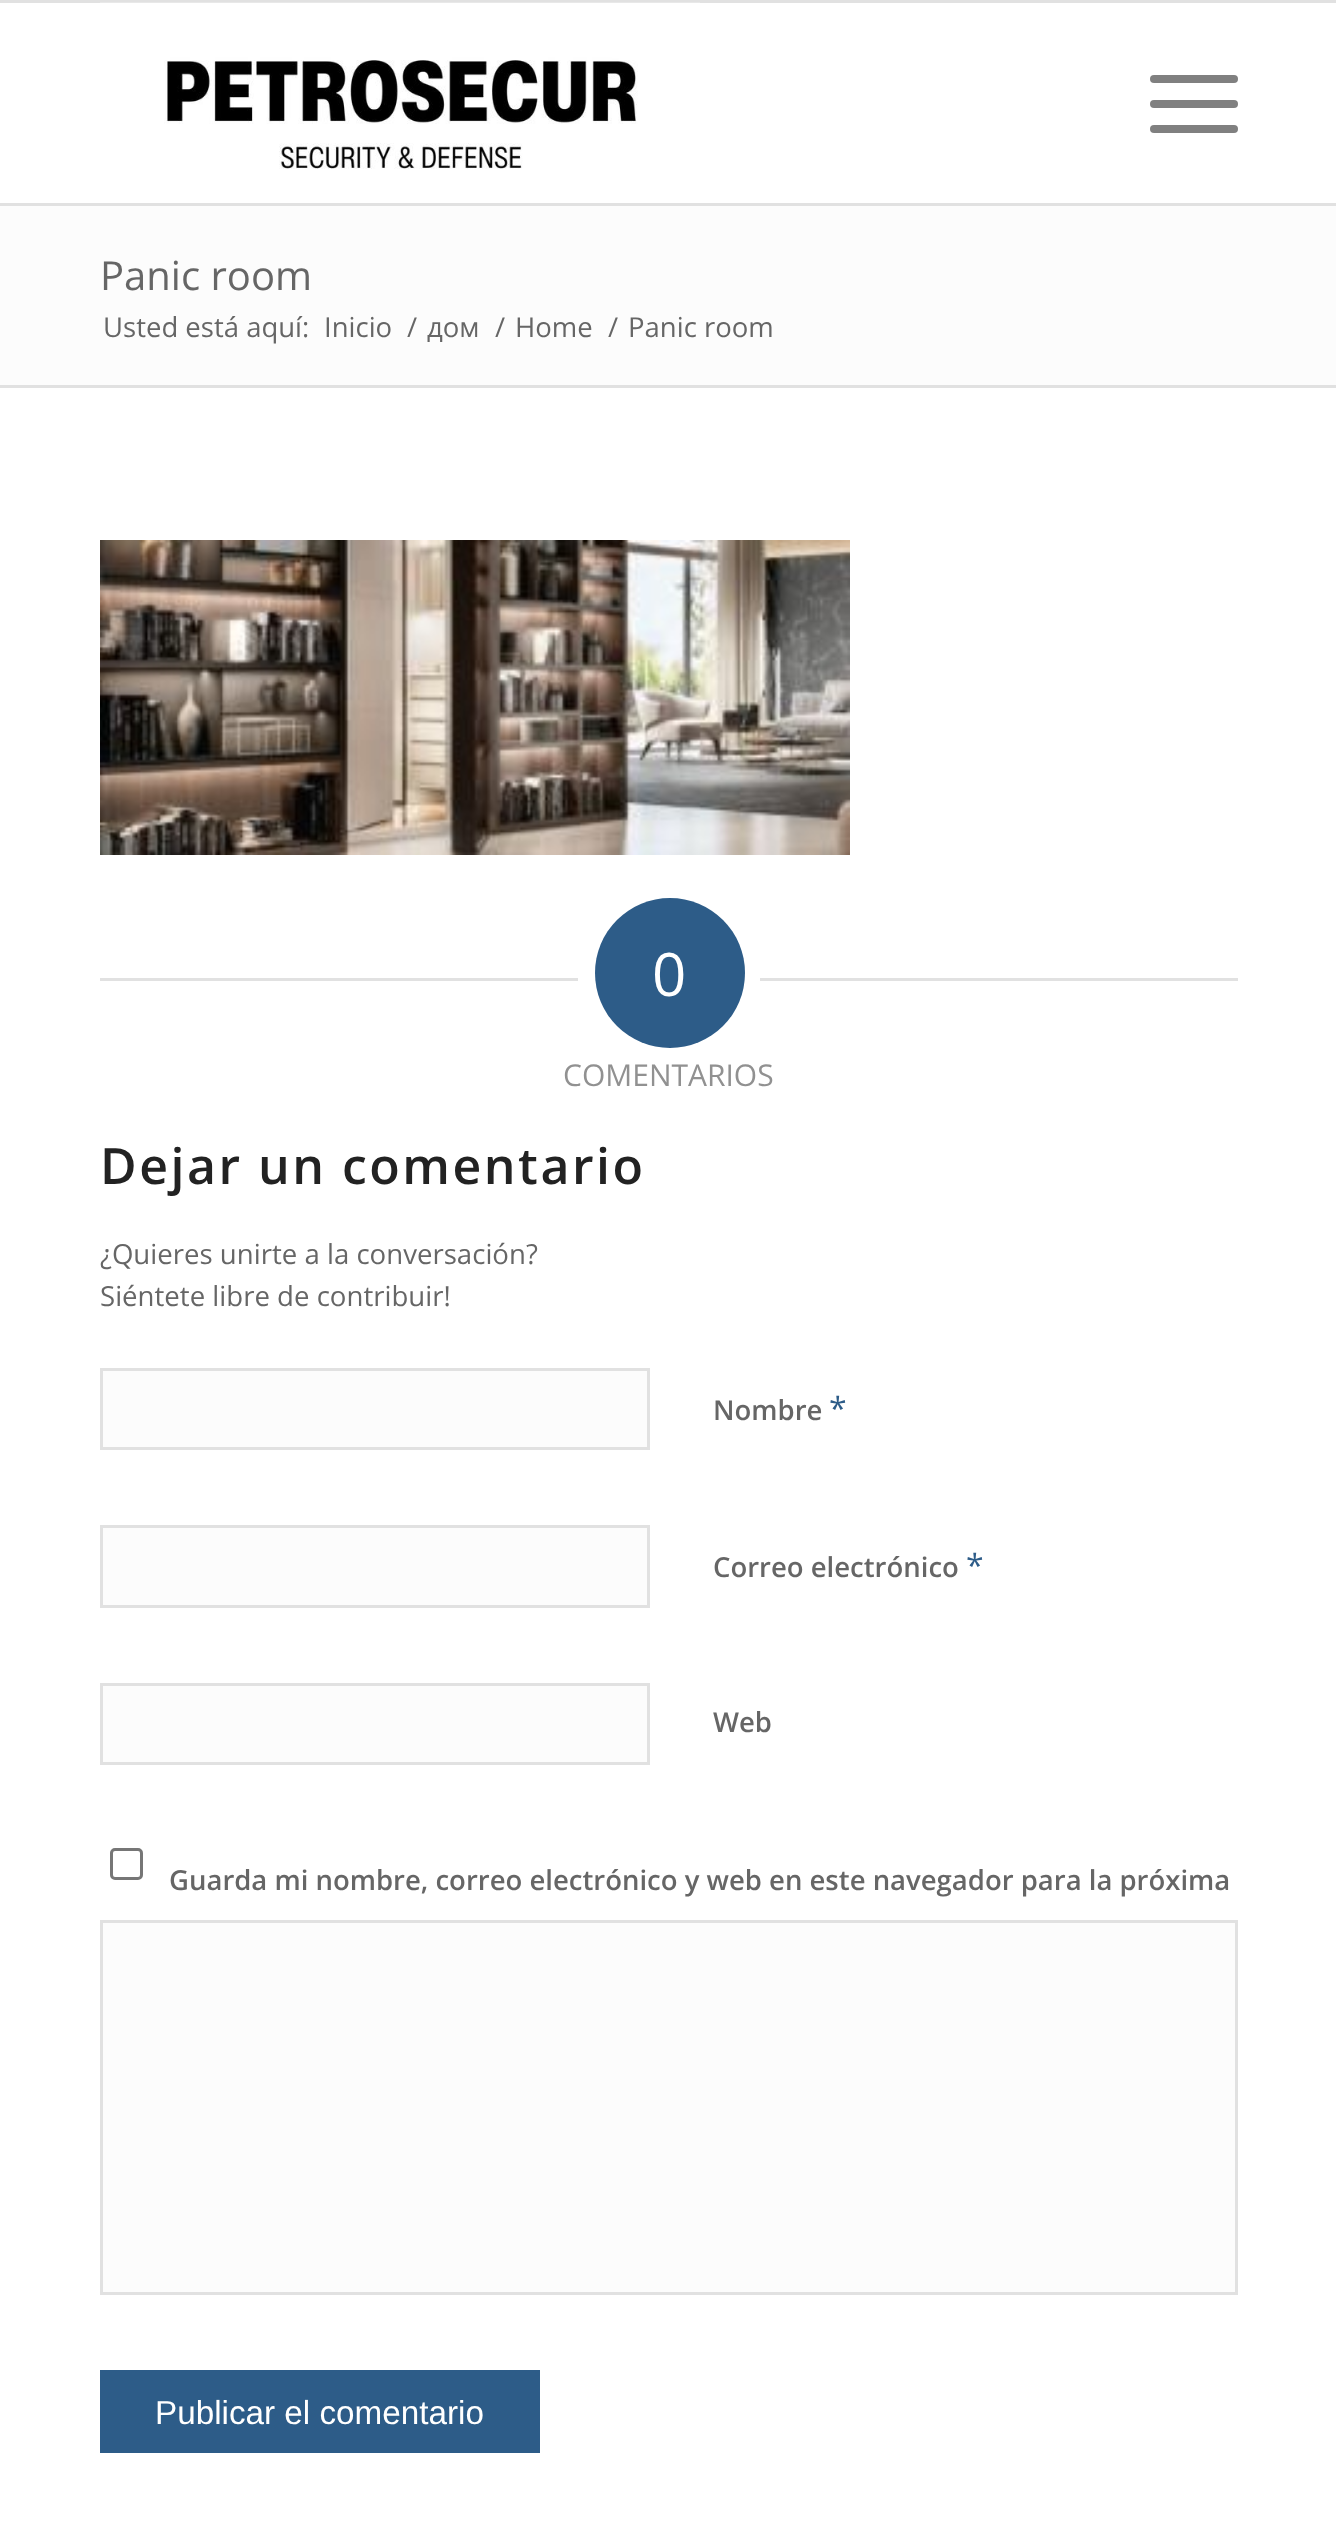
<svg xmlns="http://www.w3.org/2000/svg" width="1336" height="2526">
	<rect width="100%" height="100%" fill="#FFFFFF" />
	<rect x="0" y="0" width="1336" height="3" fill="#E1E1E1" />
	<rect x="0" y="203" width="1336" height="3" fill="#E1E1E1" />
	<image x="100" y="2" width="600" height="167" href="assets/img1.png" />
	<rect x="1150" y="100" width="88" height="8" rx="4" fill="#808080" />
	<rect x="1150" y="75" width="88" height="8" rx="4" fill="#808080" />
	<rect x="1150" y="125" width="88" height="8" rx="4" fill="#808080" />
	<rect x="0" y="206" width="1336" height="179" fill="#FCFCFC" />
	<text x="100" y="290" font-family="Open Sans" font-size="40" fill="#666666">Panic room</text>
	<g font-family="Open Sans" font-size="27.5" fill="#666666">
		<text x="103" y="337">Usted está aquí:</text>
		<text x="324" y="337">Inicio</text>
		<text x="407" y="337">/</text>
		<text x="427" y="337">дом</text>
		<text x="495" y="337">/</text>
		<text x="515" y="337">Home</text>
		<text x="608" y="337">/</text>
		<text x="628" y="337">Panic room</text>
	</g>
	<rect x="0" y="385" width="1336" height="3" fill="#E1E1E1" />
	<image x="100" y="540" width="750" height="315" href="assets/img2.png" />
	<rect x="100" y="978" width="478" height="3" fill="#E1E1E1" />
	<circle cx="670" cy="973" r="75" fill="#2D5C88" />
	<text x="652" y="996" font-family="Open Sans" font-size="60" fill="#FFFFFF">0</text>
	<rect x="760" y="978" width="478" height="3" fill="#E1E1E1" />
	<text x="563" y="1086" font-family="Open Sans" font-size="30" fill="#919191">COMENTARIOS</text>
	<text x="100" y="1184" font-family="Open Sans" font-size="50" font-weight="600" letter-spacing="2.5" fill="#222222">Dejar un comentario</text>
	<g font-family="Open Sans" font-size="27.6" fill="#666666">
		<text x="100" y="1264">¿Quieres unirte a la conversación?</text>
		<text x="100" y="1306">Siéntete libre de contribuir!</text>
	</g>
	<rect x="101.5" y="1369.5" width="547" height="79" fill="#FCFCFC" stroke="#E1E1E1" stroke-width="3" />
	<text x="713" y="1420" font-family="Open Sans" font-size="27.5" font-weight="600" fill="#666666">Nombre</text>
	<text x="829" y="1420" font-family="Open Sans" font-size="32" fill="#2D5C88">*</text>
	<rect x="101.5" y="1526.5" width="547" height="80" fill="#FCFCFC" stroke="#E1E1E1" stroke-width="3" />
	<text x="713" y="1577" font-family="Open Sans" font-size="27.5" font-weight="600" fill="#666666">Correo electrónico</text>
	<text x="966" y="1577" font-family="Open Sans" font-size="32" fill="#2D5C88">*</text>
	<rect x="101.5" y="1684.5" width="547" height="79" fill="#FCFCFC" stroke="#E1E1E1" stroke-width="3" />
	<text x="713" y="1732" font-family="Open Sans" font-size="27.5" font-weight="600" fill="#666666">Web</text>
	<rect x="111.5" y="1849.5" width="30" height="29" rx="3.5" fill="none" stroke="#767676" stroke-width="3" />
	<text x="169" y="1890" font-family="Open Sans" font-size="27.5" font-weight="600" fill="#666666">Guarda mi nombre, correo electrónico y web en este navegador para la próxima</text>
	<rect x="101.5" y="1921.5" width="1135" height="372" fill="#FCFCFC" stroke="#E1E1E1" stroke-width="3" />
	<rect x="100" y="2370" width="440" height="83" fill="#2D5C88" />
	<text x="155" y="2424" font-family="Liberation Sans" font-size="33.25" fill="#FFFFFF">Publicar el comentario</text>
</svg>
